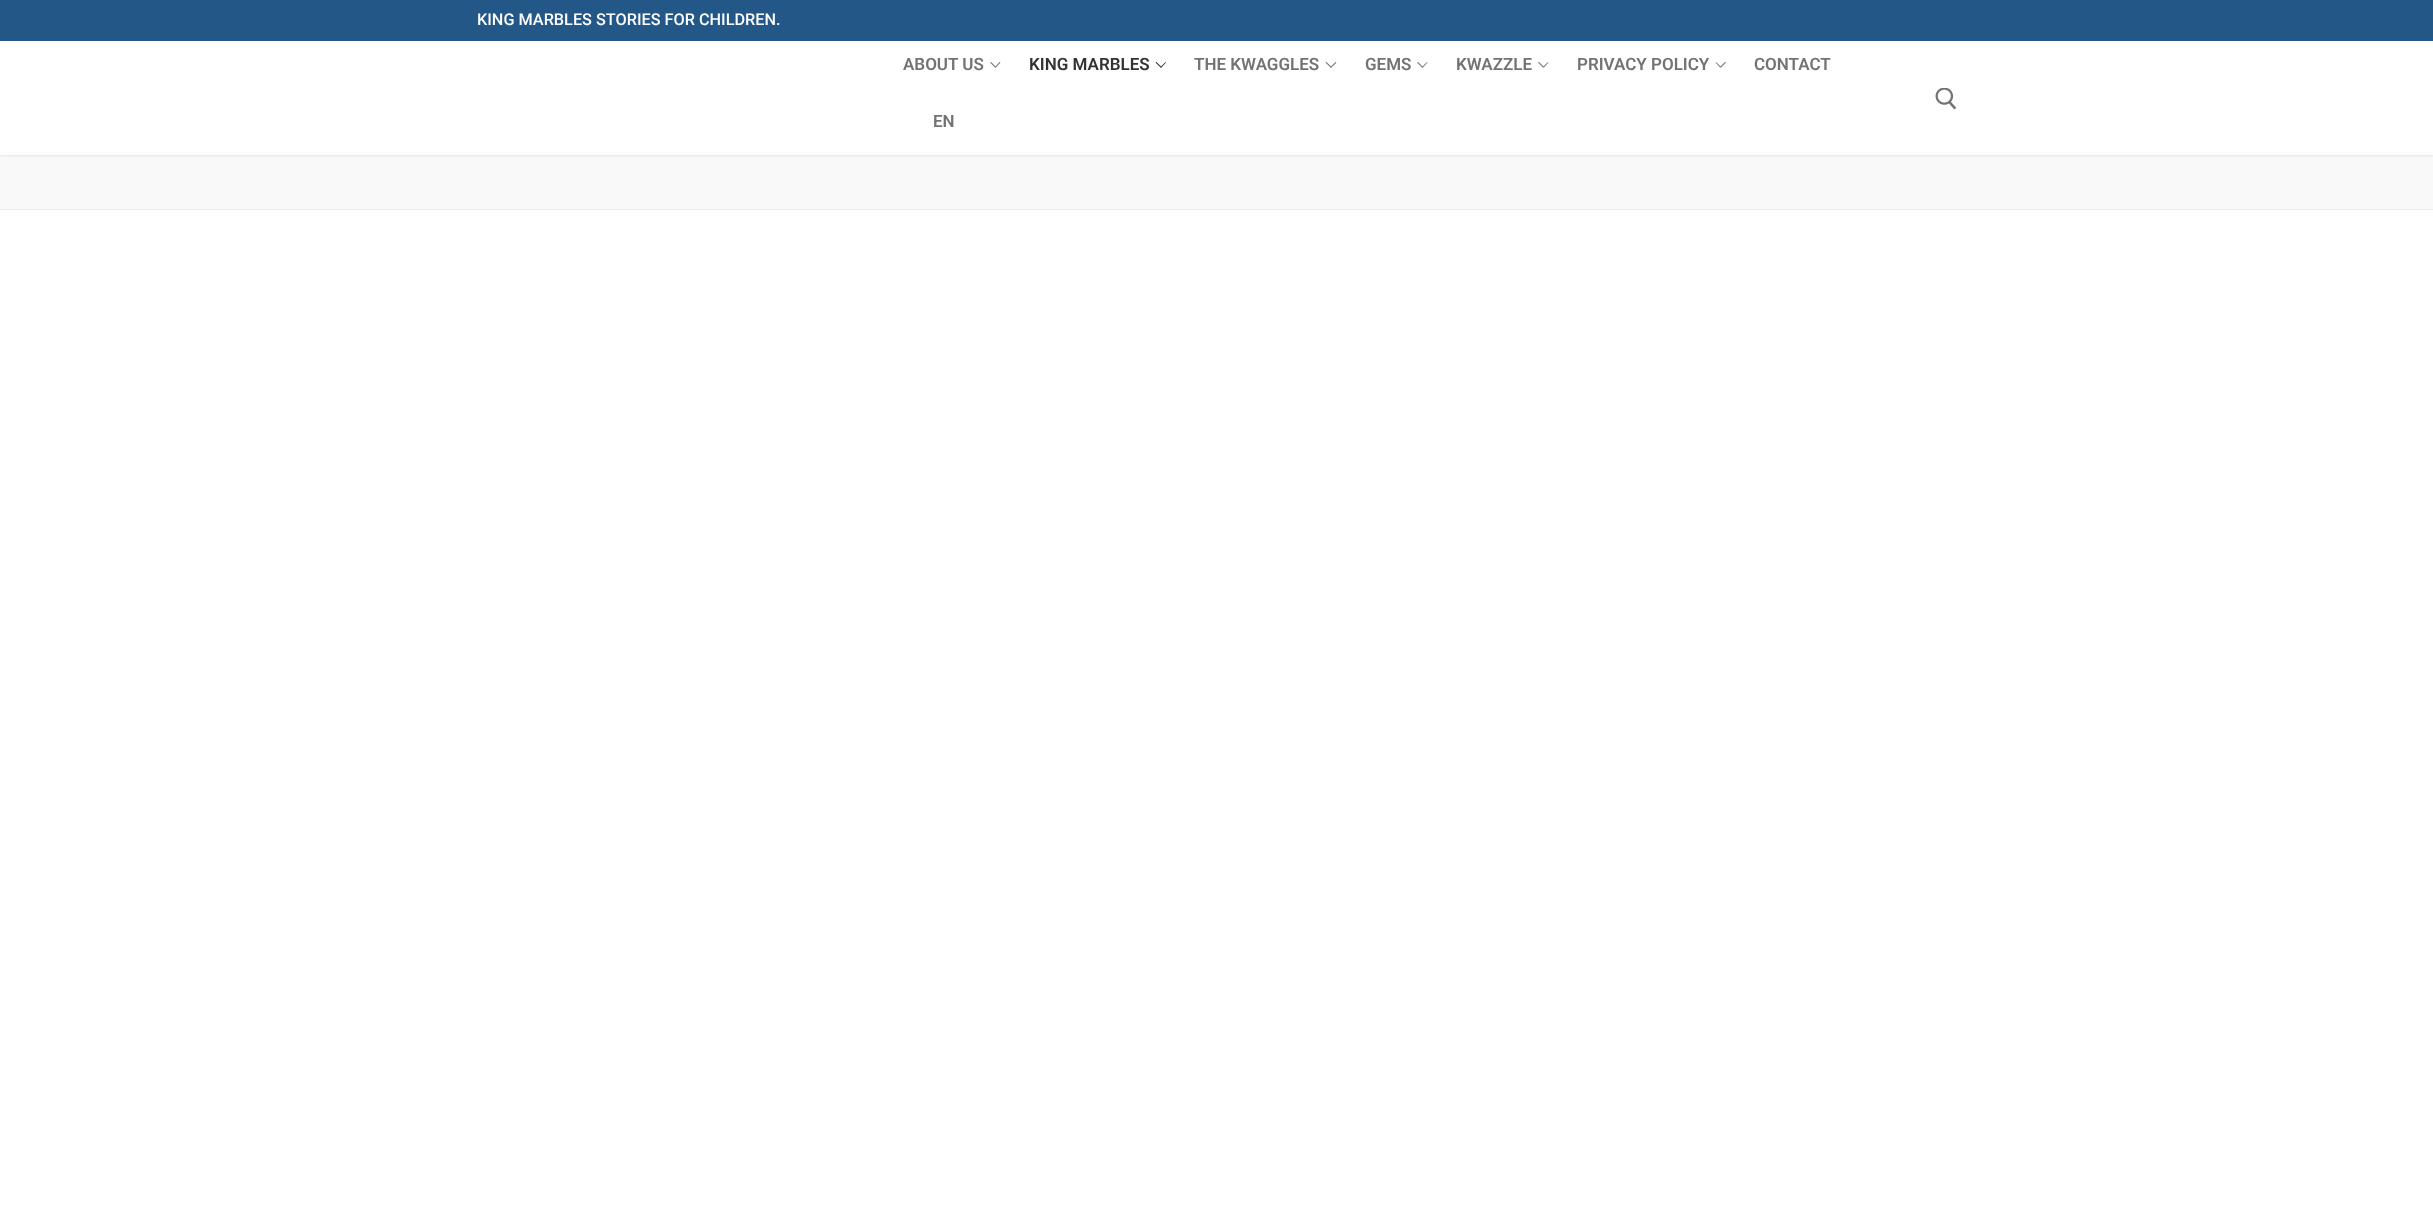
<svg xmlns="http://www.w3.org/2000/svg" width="2433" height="1223">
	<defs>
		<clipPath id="clip1"><rect x="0" y="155" width="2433" height="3" /></clipPath>
	</defs>
	<rect width="100%" height="100%" fill="#FFFFFF" />
	<rect x="0" y="0" width="2433" height="41" fill="#235787" />
	<text x="477" y="25" font-family="Roboto" font-size="16.25" font-weight="500" fill="#FDFDFE">KING MARBLES STORIES FOR CHILDREN.</text>
	<rect x="0" y="155" width="2433" height="54" fill="#F9F9F9" />
	<g clip-path="url(#clip1)">
		<rect x="0" y="43" width="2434" height="113" fill="#E1E5EA" filter="blur(1px)" />
	</g>
	<text x="903" y="70" font-family="Roboto" font-size="17" font-weight="600" fill="#737373">ABOUT US</text>
	<path d="M995.5 68L990 62.5L991 62L995.5 66.5Z" fill="#737373" />
	<path d="M1000.5 62.5L995.5 68V66.5L999.5 62Z" fill="#737373" />
	<text x="1029" y="70" font-family="Roboto" font-size="17" font-weight="600" fill="#333333">KING MARBLES</text>
	<path d="M1161 68L1155.5 62.5L1156.5 62L1161 66.5ZM1166 62.5L1161 68V66.5L1165.5 62Z" fill="#333333" />
	<text x="1194" y="70" font-family="Roboto" font-size="17" font-weight="600" fill="#737373">THE KWAGGLES</text>
	<path d="M1331 68L1325.5 62.5L1326.5 62L1331 66.5ZM1336.5 62.5L1331 68V66.5L1335.5 62Z" fill="#737373" />
	<text x="1365" y="70" font-family="Roboto" font-size="17" font-weight="600" fill="#737373">GEMS</text>
	<path d="M1422.5 68L1417 62.5L1418 62L1422.5 66.5Z" fill="#737373" />
	<path d="M1427.5 62.5L1422.5 68V66.5L1427 62Z" fill="#737373" />
	<text x="1456" y="70" font-family="Roboto" font-size="17" font-weight="600" fill="#737373">KWAZZLE</text>
	<path d="M1543.5 68L1538 62.5L1539 62L1543.5 66.5Z" fill="#737373" />
	<path d="M1548.5 62.5L1543.5 68V66.5L1548 62Z" fill="#737373" />
	<text x="1577" y="70" font-family="Roboto" font-size="17" font-weight="600" fill="#737373">PRIVACY POLICY</text>
	<path d="M1720.5 68L1715.5 62.5L1716 62L1720.5 66.5Z" fill="#737373" />
	<path d="M1726 62.5L1720.5 68V66.5L1725 62Z" fill="#737373" />
	<g font-family="Roboto" font-size="17" font-weight="600" fill="#737373">
		<text x="1754" y="70">CONTACT</text>
		<text x="933" y="127">EN</text>
	</g>
	<image x="1935" y="88" width="22" height="22" href="assets/img1.png" />
	<rect x="0" y="209" width="2433" height="1" fill="#EAECEE" />
</svg>
